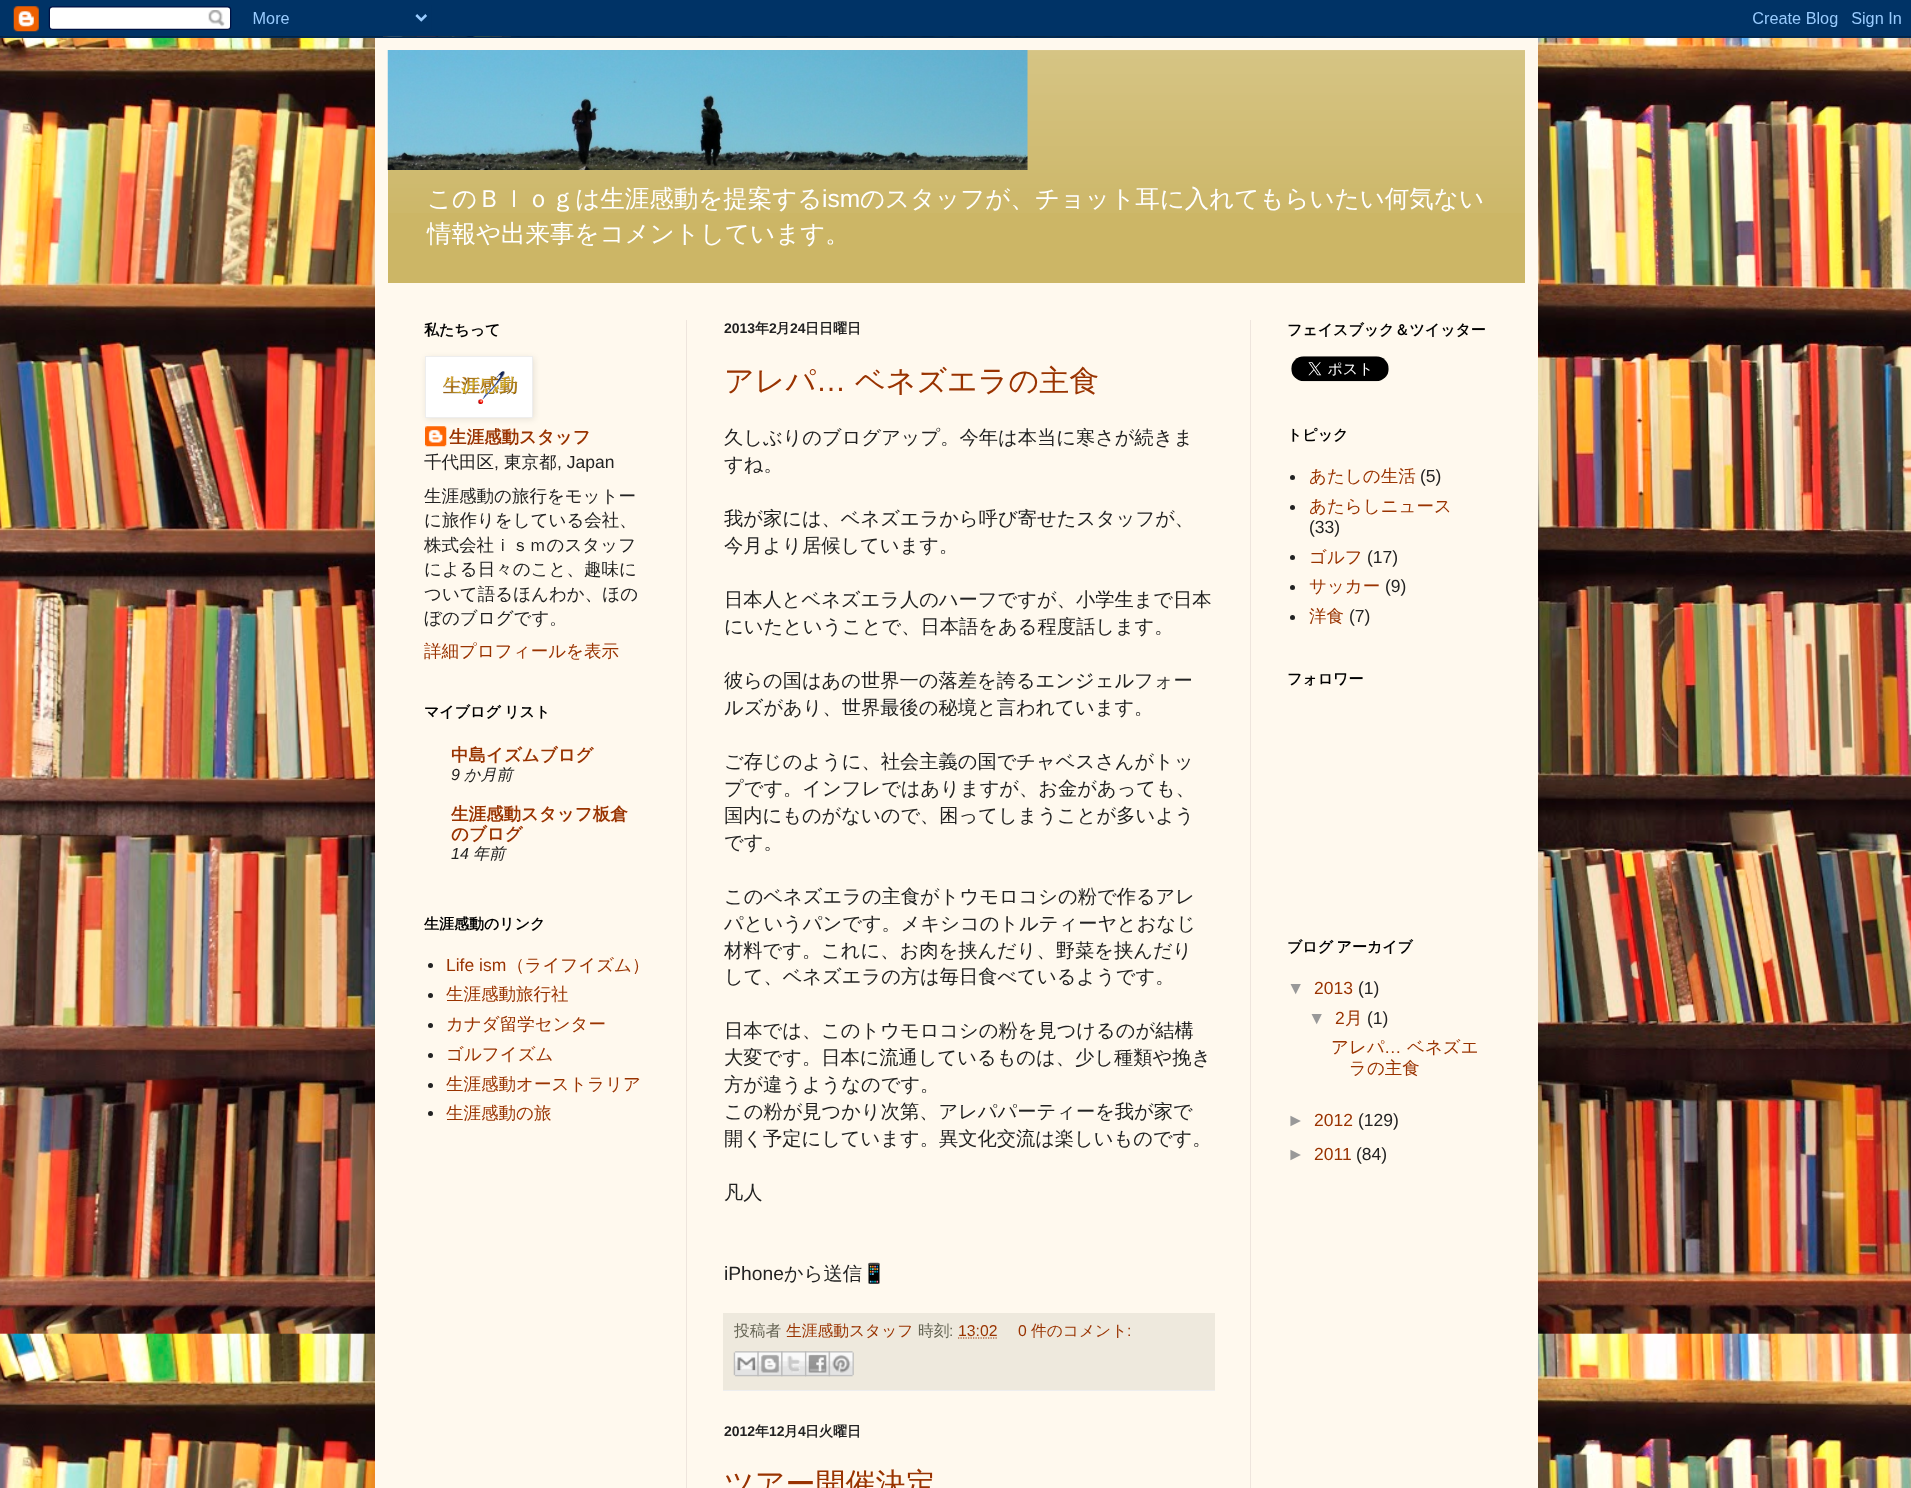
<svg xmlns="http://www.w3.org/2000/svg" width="1911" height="1488">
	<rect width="100%" height="100%" fill="#FFFFFF" />
	<image x="0" y="36" width="1911" height="1452" href="assets/img1.png" />
	<rect x="375" y="38" width="1163" height="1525" fill="#000000" fill-opacity="0.15" filter="blur(25px)" />
	<image x="0" y="0" width="1911" height="38" href="assets/img2.png" />
	<rect x="375" y="38" width="1163" height="1450" fill="#FFF9EE" />
	<rect x="388" y="50" width="1137" height="233" fill="#CCB666" />
	<image x="388" y="50" width="1137" height="163" href="assets/img3.png" />
	<image x="387" y="50" width="641" height="120" href="assets/img4.png" />
	<text x="427" y="207" font-family="WenQuanYi Zen Hei" font-size="24.5" font-weight="500" fill="#FFFFFF">このＢｌｏｇは生涯感動を提案する</text>
	<text x="822" y="207" font-family="Liberation Sans" font-size="24.5" fill="#FFFFFF">ism</text>
	<g font-family="WenQuanYi Zen Hei" font-size="24.5" font-weight="500" fill="#FFFFFF">
		<text x="860" y="207">のスタッフが、チョット耳に入れてもらいたい何気ない</text>
		<text x="427" y="242">情報や出来事をコメントしています。</text>
	</g>
	<rect x="686" y="320" width="1" height="1168" fill="#EEE5DD" />
	<rect x="1250" y="320" width="1" height="1168" fill="#EEE5DD" />
	<text x="424" y="335" font-family="WenQuanYi Zen Hei" font-size="15" font-weight="700" fill="#000000">私たちって</text>
	<image x="425" y="426" width="22" height="21" href="assets/img6.png" />
	<rect x="426" y="358" width="108" height="61" fill="#000000" fill-opacity="0.1" filter="blur(3px)" />
	<rect x="425.5" y="356.5" width="107" height="61" fill="#FFFFFF" stroke="#EEEEEE" />
	<image x="442" y="371" width="76" height="33" href="assets/img5.png" />
	<text x="449" y="443" font-family="WenQuanYi Zen Hei" font-size="17.5" font-weight="700" fill="#993300">生涯感動スタッフ</text>
	<text x="424" y="468" font-family="WenQuanYi Zen Hei" font-size="17.5" font-weight="500" fill="#222222">千代田区</text>
	<text x="494" y="468" font-family="Liberation Sans" font-size="17.5" fill="#222222">,</text>
	<text x="504" y="468" font-family="WenQuanYi Zen Hei" font-size="17.5" font-weight="500" fill="#222222">東京都</text>
	<text x="557" y="468" font-family="Liberation Sans" font-size="17.5" fill="#222222">, Japan</text>
	<g font-family="WenQuanYi Zen Hei" font-size="17.5" font-weight="500" fill="#222222">
		<text x="424" y="502">生涯感動の旅行をモットー</text>
		<text x="424" y="526">に旅作りをしている会社、</text>
		<text x="424" y="551">株式会社ｉｓｍのスタッフ</text>
		<text x="424" y="575">による日々のこと、趣味に</text>
		<text x="424" y="600">ついて語るほんわか、ほの</text>
		<text x="424" y="624">ぼのブログです。</text>
	</g>
	<text x="424" y="657" font-family="WenQuanYi Zen Hei" font-size="17.5" font-weight="500" fill="#993300">詳細プロフィールを表示</text>
	<text x="424" y="717" word-spacing="-1" font-family="WenQuanYi Zen Hei" font-size="15" font-weight="700" fill="#000000">マイブログ リスト</text>
	<text x="451" y="761" font-family="WenQuanYi Zen Hei" font-size="17.5" font-weight="700" fill="#993300">中島イズムブログ</text>
	<text x="451" y="780" font-family="Liberation Sans" font-size="16" font-style="italic" fill="#222222">9</text>
	<text x="464" y="780" font-family="WenQuanYi Zen Hei" font-size="16" font-weight="500" font-style="italic" fill="#222222">か月前</text>
	<g font-family="WenQuanYi Zen Hei" font-size="17.5" font-weight="700" fill="#993300">
		<text x="451" y="820">生涯感動スタッフ板倉</text>
		<text x="451" y="840">のブログ</text>
	</g>
	<text x="451" y="859" font-family="Liberation Sans" font-size="16" font-style="italic" fill="#222222">14</text>
	<text x="473" y="859" font-family="WenQuanYi Zen Hei" font-size="16" font-weight="500" font-style="italic" fill="#222222">年前</text>
	<text x="424" y="929" font-family="WenQuanYi Zen Hei" font-size="15" font-weight="700" fill="#000000">生涯感動のリンク</text>
	<circle cx="430.5" cy="965.5" r="2.5" fill="#222222" />
	<text x="446" y="971" font-family="Liberation Sans" font-size="17.5" fill="#993300">Life ism</text>
	<text x="507" y="971" font-family="WenQuanYi Zen Hei" font-size="17.5" font-weight="500" fill="#993300">（ライフイズム）</text>
	<circle cx="430.5" cy="995.5" r="2.5" fill="#222222" />
	<text x="446" y="1000" font-family="WenQuanYi Zen Hei" font-size="17.5" font-weight="500" fill="#993300">生涯感動旅行社</text>
	<circle cx="430.5" cy="1025.5" r="2.5" fill="#222222" />
	<text x="446" y="1030" font-family="WenQuanYi Zen Hei" font-size="17.5" font-weight="500" fill="#993300">カナダ留学センター</text>
	<circle cx="430.5" cy="1055.5" r="2.5" fill="#222222" />
	<text x="446" y="1060" font-family="WenQuanYi Zen Hei" font-size="17.5" font-weight="500" fill="#993300">ゴルフイズム</text>
	<circle cx="430.5" cy="1085.5" r="2.5" fill="#222222" />
	<text x="446" y="1090" font-family="WenQuanYi Zen Hei" font-size="17.5" font-weight="500" fill="#993300">生涯感動オーストラリア</text>
	<circle cx="430.5" cy="1113.5" r="2.5" fill="#222222" />
	<text x="446" y="1119" font-family="WenQuanYi Zen Hei" font-size="17.5" font-weight="500" fill="#993300">生涯感動の旅</text>
	<text x="724" y="333" font-family="Liberation Sans" font-size="14" font-weight="700" fill="#222222">2013</text>
	<text x="755" y="333" font-family="WenQuanYi Zen Hei" font-size="14" font-weight="700" fill="#222222">年</text>
	<text x="769" y="333" font-family="Liberation Sans" font-size="14" font-weight="700" fill="#222222">2</text>
	<text x="776" y="333" font-family="WenQuanYi Zen Hei" font-size="14" font-weight="700" fill="#222222">月</text>
	<text x="790" y="333" font-family="Liberation Sans" font-size="14" font-weight="700" fill="#222222">24</text>
	<text x="805" y="333" font-family="WenQuanYi Zen Hei" font-size="14" font-weight="700" fill="#222222">日日曜日</text>
	<text x="724" y="391" font-family="WenQuanYi Zen Hei" font-size="30" font-weight="500" fill="#993300">アレパ</text>
	<text x="816" y="391" font-family="Liberation Sans" font-size="30" fill="#993300">…</text>
	<text x="855" y="391" font-family="WenQuanYi Zen Hei" font-size="30" font-weight="500" fill="#993300">ベネズエラの主食</text>
	<g font-family="WenQuanYi Zen Hei" font-size="19.25" font-weight="500" fill="#222222">
		<text x="724" y="444">久しぶりのブログアップ。今年は本当に寒さが続きま</text>
		<text x="724" y="471">すね。</text>
		<text x="724" y="525">我が家には、ベネズエラから呼び寄せたスタッフが、</text>
		<text x="724" y="552">今月より居候しています。</text>
		<text x="724" y="606">日本人とベネズエラ人のハーフですが、小学生まで日本</text>
		<text x="724" y="633">にいたということで、日本語をある程度話します。</text>
		<text x="724" y="687">彼らの国はあの世界一の落差を誇るエンジェルフォー</text>
		<text x="724" y="714">ルズがあり、世界最後の秘境と言われています。</text>
		<text x="724" y="768">ご存じのように、社会主義の国でチャベスさんがトッ</text>
		<text x="724" y="795">プです。インフレではありますが、お金があっても、</text>
		<text x="724" y="822">国内にものがないので、困ってしまうことが多いよう</text>
		<text x="724" y="849">です。</text>
		<text x="724" y="903">このベネズエラの主食がトウモロコシの粉で作るアレ</text>
		<text x="724" y="930">パというパンです。メキシコのトルティーヤとおなじ</text>
		<text x="724" y="957">材料です。これに、お肉を挟んだり、野菜を挟んだり</text>
		<text x="724" y="983">して、ベネズエラの方は毎日食べているようです。</text>
		<text x="724" y="1037">日本では、このトウモロコシの粉を見つけるのが結構</text>
		<text x="724" y="1064">大変です。日本に流通しているものは、少し種類や挽き</text>
		<text x="724" y="1091">方が違うようなのです。</text>
		<text x="724" y="1118">この粉が見つかり次第、アレパパーティーを我が家で</text>
		<text x="724" y="1145">開く予定にしています。異文化交流は楽しいものです。</text>
		<text x="724" y="1199">凡人</text>
	</g>
	<text x="724" y="1280" font-family="Liberation Sans" font-size="19.25" fill="#222222">iPhone</text>
	<text x="784" y="1280" font-family="WenQuanYi Zen Hei" font-size="19.25" font-weight="500" fill="#222222">から送信</text>
	<text x="862" y="1280" font-family="Noto Color Emoji" font-size="19.25" fill="#222222">📱</text>
	<rect x="723" y="1313" width="492" height="77" fill="#EEE9DD" />
	<rect x="723" y="1390" width="492" height="1" fill="#EEEEEE" />
	<text x="734" y="1336" font-family="WenQuanYi Zen Hei" font-size="15.75" font-weight="500" fill="#666555">投稿者</text>
	<text x="786" y="1336" font-family="WenQuanYi Zen Hei" font-size="15.75" font-weight="500" fill="#993300">生涯感動スタッフ</text>
	<text x="918" y="1336" font-family="WenQuanYi Zen Hei" font-size="15.75" font-weight="500" fill="#666555">時刻</text>
	<text x="949" y="1336" font-family="Liberation Sans" font-size="15.75" fill="#666555">:</text>
	<text x="958" y="1336" font-family="Liberation Sans" font-size="15.75" fill="#993300">13:02</text>
	<path d="M958 1338H997.5" fill="none" stroke="#993300" stroke-width="1.2" stroke-dasharray="1.25 1.25" />
	<text x="1018" y="1336" font-family="Liberation Sans" font-size="15.75" fill="#993300">0</text>
	<text x="1031" y="1336" font-family="WenQuanYi Zen Hei" font-size="15.75" font-weight="500" fill="#993300">件のコメント</text>
	<text x="1127" y="1336" font-family="Liberation Sans" font-size="15.75" fill="#993300">:</text>
	<image x="733" y="1351" width="26" height="26" href="assets/img7.png" />
	<image x="757" y="1351" width="26" height="26" href="assets/img8.png" />
	<image x="781" y="1351" width="26" height="26" href="assets/img9.png" />
	<image x="805" y="1351" width="25" height="26" href="assets/img10.png" />
	<image x="828" y="1351" width="26" height="26" href="assets/img11.png" />
	<text x="724" y="1436" font-family="Liberation Sans" font-size="14" font-weight="700" fill="#222222">2012</text>
	<text x="755" y="1436" font-family="WenQuanYi Zen Hei" font-size="14" font-weight="700" fill="#222222">年</text>
	<text x="769" y="1436" font-family="Liberation Sans" font-size="14" font-weight="700" fill="#222222">12</text>
	<text x="784" y="1436" font-family="WenQuanYi Zen Hei" font-size="14" font-weight="700" fill="#222222">月</text>
	<text x="798" y="1436" font-family="Liberation Sans" font-size="14" font-weight="700" fill="#222222">4</text>
	<text x="805" y="1436" font-family="WenQuanYi Zen Hei" font-size="14" font-weight="700" fill="#222222">日火曜日</text>
	<text x="724" y="1494" font-family="WenQuanYi Zen Hei" font-size="30" font-weight="500" fill="#993300">ツアー開催決定</text>
	<text x="1287" y="335" font-family="WenQuanYi Zen Hei" font-size="15" font-weight="700" fill="#000000">フェイスブック＆ツイッター</text>
	<image x="1291" y="356" width="98" height="26" href="assets/img12.png" />
	<text x="1287" y="440" font-family="WenQuanYi Zen Hei" font-size="15" font-weight="700" fill="#000000">トピック</text>
	<circle cx="1292.5" cy="477.5" r="2.5" fill="#222222" />
	<text x="1309" y="482" font-family="WenQuanYi Zen Hei" font-size="17.5" font-weight="500" fill="#993300">あたしの生活</text>
	<text x="1420" y="482" font-family="Liberation Sans" font-size="17.5" fill="#222222">(5)</text>
	<circle cx="1292.5" cy="507.5" r="2.5" fill="#222222" />
	<text x="1309" y="512" font-family="WenQuanYi Zen Hei" font-size="17.5" font-weight="500" fill="#993300">あたらしニュース</text>
	<text x="1309" y="533" font-family="Liberation Sans" font-size="17.5" fill="#222222">(33)</text>
	<circle cx="1292.5" cy="557.5" r="2.5" fill="#222222" />
	<text x="1309" y="563" font-family="WenQuanYi Zen Hei" font-size="17.5" font-weight="500" fill="#993300">ゴルフ</text>
	<text x="1367" y="563" font-family="Liberation Sans" font-size="17.5" fill="#222222">(17)</text>
	<circle cx="1292.5" cy="587.5" r="2.5" fill="#222222" />
	<text x="1309" y="592" font-family="WenQuanYi Zen Hei" font-size="17.5" font-weight="500" fill="#993300">サッカー</text>
	<text x="1385" y="592" font-family="Liberation Sans" font-size="17.5" fill="#222222">(9)</text>
	<circle cx="1292.5" cy="617.5" r="2.5" fill="#222222" />
	<text x="1309" y="622" font-family="WenQuanYi Zen Hei" font-size="17.5" font-weight="500" fill="#993300">洋食</text>
	<text x="1349" y="622" font-family="Liberation Sans" font-size="17.5" fill="#222222">(7)</text>
	<g font-family="WenQuanYi Zen Hei" font-size="15" font-weight="700" fill="#000000">
		<text x="1287" y="684">フォロワー</text>
		<text x="1287" y="952" word-spacing="-1">ブログ アーカイブ</text>
	</g>
	<text x="1287" y="994" font-family="Liberation Sans" font-size="17.5" fill="#999999">▼</text>
	<text x="1314" y="994" font-family="Liberation Sans" font-size="17.5" fill="#993300">2013</text>
	<text x="1358" y="994" font-family="Liberation Sans" font-size="17.5" fill="#222222">(1)</text>
	<text x="1308" y="1024" font-family="Liberation Sans" font-size="17.5" fill="#999999">▼</text>
	<text x="1335" y="1024" font-family="Liberation Sans" font-size="17.5" fill="#993300">2</text>
	<text x="1345" y="1024" font-family="WenQuanYi Zen Hei" font-size="17.5" font-weight="500" fill="#993300">月</text>
	<text x="1367" y="1024" font-family="Liberation Sans" font-size="17.5" fill="#222222">(1)</text>
	<text x="1331" y="1053" font-family="WenQuanYi Zen Hei" font-size="17.5" font-weight="500" fill="#993300">アレパ</text>
	<text x="1384" y="1053" font-family="Liberation Sans" font-size="17.5" fill="#993300">…</text>
	<g font-family="WenQuanYi Zen Hei" font-size="17.5" font-weight="500" fill="#993300">
		<text x="1407" y="1053">ベネズエ</text>
		<text x="1349" y="1074">ラの主食</text>
	</g>
	<text x="1287" y="1126" font-family="Liberation Sans" font-size="17.5" fill="#999999">►</text>
	<text x="1314" y="1126" font-family="Liberation Sans" font-size="17.5" fill="#993300">2012</text>
	<text x="1358" y="1126" font-family="Liberation Sans" font-size="17.5" fill="#222222">(129)</text>
	<text x="1287" y="1160" font-family="Liberation Sans" font-size="17.5" fill="#999999">►</text>
	<text x="1314" y="1160" font-family="Liberation Sans" font-size="17.5" fill="#993300">2011</text>
	<text x="1356" y="1160" font-family="Liberation Sans" font-size="17.5" fill="#222222">(84)</text>
</svg>
